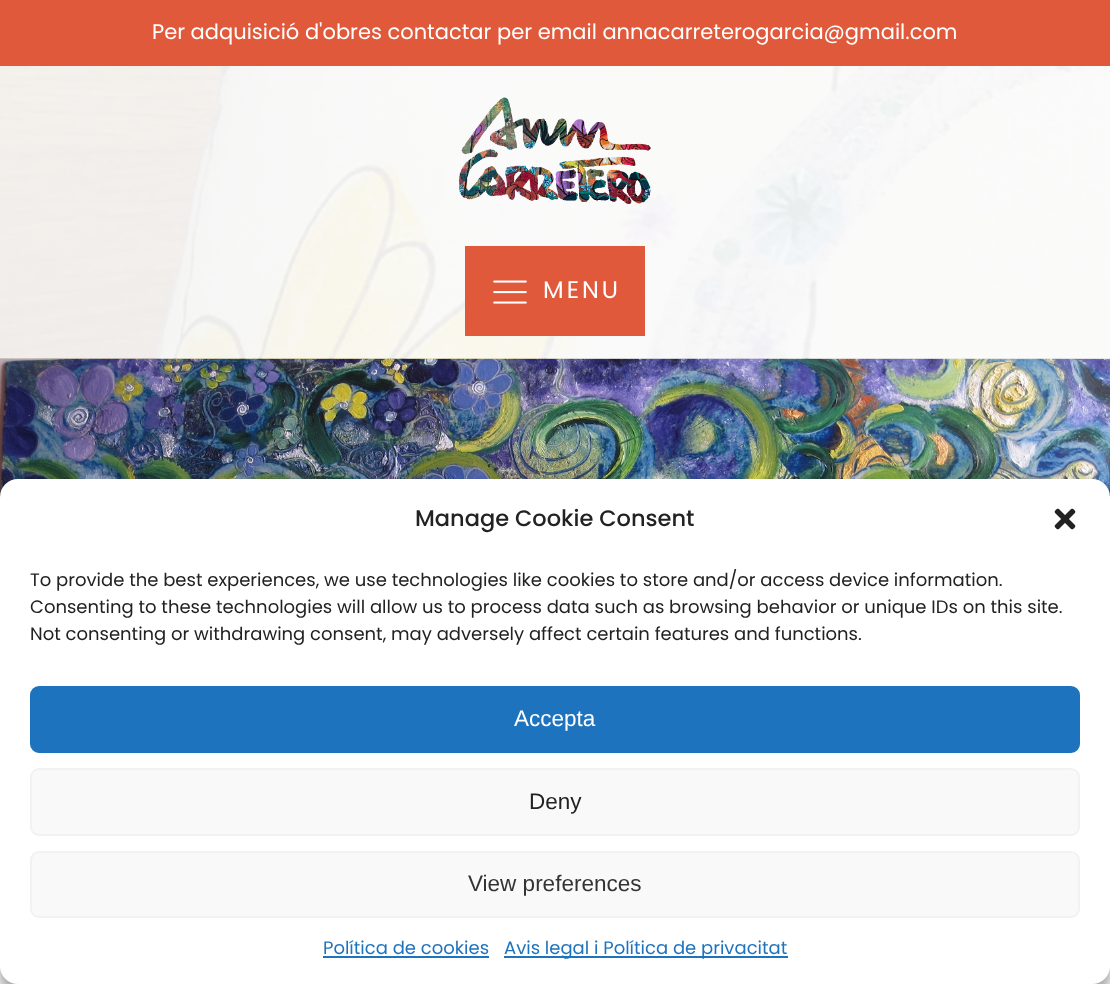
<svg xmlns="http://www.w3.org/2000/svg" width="1110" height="984">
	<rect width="100%" height="100%" fill="#FFFFFF" />
	<rect x="0" y="0" width="1110" height="66" fill="#E0593B" />
	<text x="152" y="39" font-family="Poppins" font-size="21" fill="#FFFFFF">Per adquisició d'obres contactar per email annacarreterogarcia@gmail.com</text>
	<image x="0" y="358" width="1110" height="139" href="assets/img4.png" />
	<image x="0" y="66" width="1110" height="293" href="assets/img1.png" />
	<image x="459" y="97" width="192" height="107" href="assets/img2.png" />
	<rect x="465" y="246" width="180" height="90" fill="#E0593B" />
	<image x="493" y="280" width="34" height="24" href="assets/img3.png" />
	<text x="543" y="298" font-family="Poppins" font-size="24" letter-spacing="3" fill="#FFFFFF">MENU</text>
	<rect x="0" y="488" width="1110" height="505" rx="18" fill="#000000" fill-opacity="0.23" filter="blur(4.5px)" />
	<rect x="0" y="494" width="1110" height="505" rx="18" fill="#000000" fill-opacity="0.19" filter="blur(15px)" />
	<rect x="0" y="479" width="1110" height="505" rx="18" fill="#FFFFFF" />
	<text x="415" y="526" font-family="Poppins" font-size="22.5" font-weight="500" fill="#222222">Manage Cookie Consent</text>
	<image x="1054" y="508" width="22" height="22" href="assets/img5.png" />
	<g font-family="Poppins" font-size="18" fill="#222222">
		<text x="30" y="586">To provide the best experiences, we use technologies like cookies to store and/or access device information.</text>
		<text x="30" y="613">Consenting to these technologies will allow us to process data such as browsing behavior or unique IDs on this site.</text>
		<text x="30" y="640">Not consenting or withdrawing consent, may adversely affect certain features and functions.</text>
	</g>
	<rect x="31" y="687" width="1048" height="65" rx="8" fill="#1E73BE" stroke="#1E73BE" stroke-width="2" />
	<text x="514" y="726" font-family="Liberation Sans" font-size="22.5" fill="#FFFFFF">Accepta</text>
	<rect x="31" y="769" width="1048" height="66" rx="8" fill="#F9F9F9" stroke="#F2F2F2" stroke-width="2" />
	<text x="529" y="809" font-family="Liberation Sans" font-size="22.5" fill="#222222">Deny</text>
	<rect x="31" y="852" width="1048" height="65" rx="8" fill="#F9F9F9" stroke="#F2F2F2" stroke-width="2" />
	<text x="468" y="891" font-family="Liberation Sans" font-size="22.5" fill="#333333">View preferences</text>
	<text x="323" y="954" font-family="Poppins" font-size="18" fill="#1E73BE">Política de cookies</text>
	<rect x="323" y="956" width="166" height="2" fill="#1E73BE" />
	<rect x="504" y="956" width="284" height="2" fill="#1E73BE" />
	<text x="504" y="954" font-family="Poppins" font-size="18" fill="#1E73BE">Avis legal i Política de privacitat</text>
</svg>
